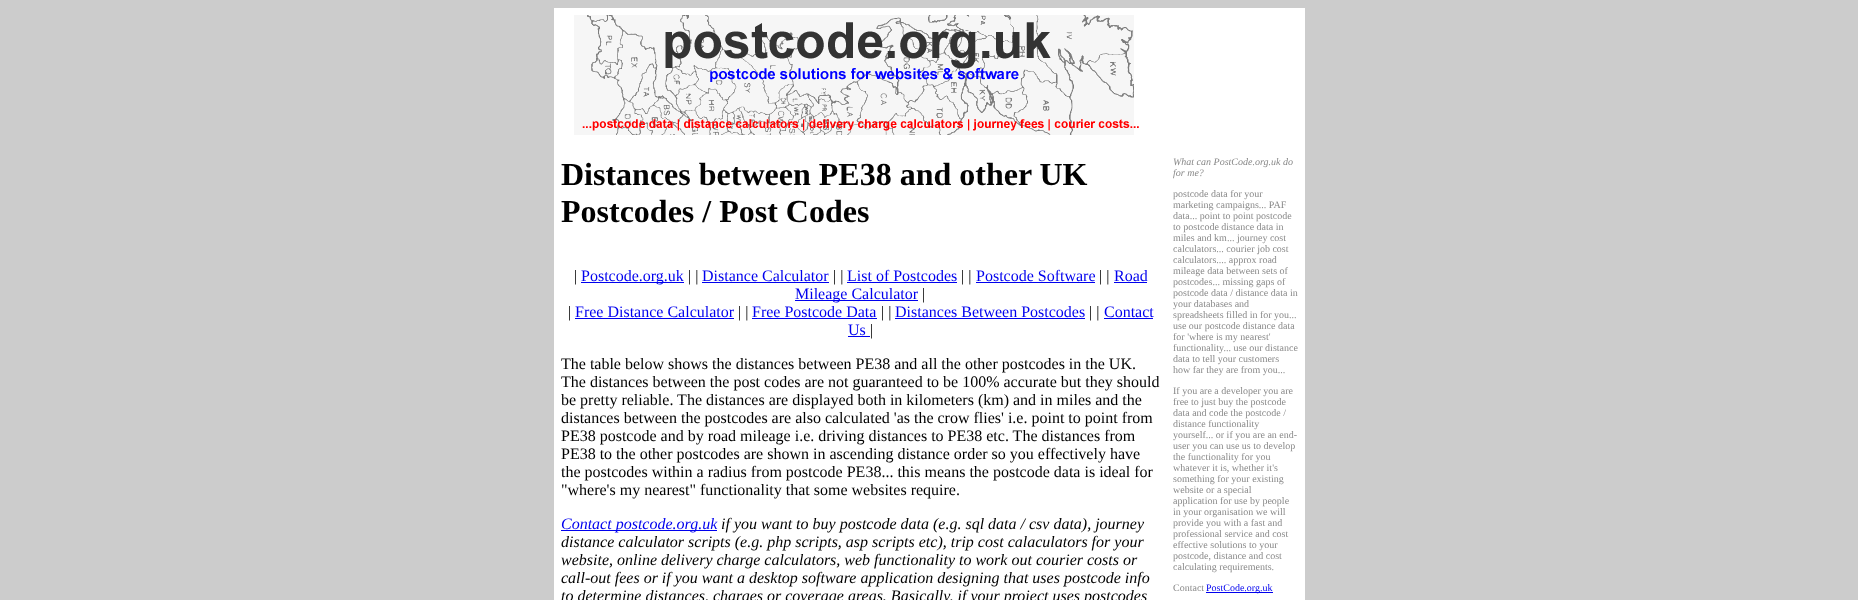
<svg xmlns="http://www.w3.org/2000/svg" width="1858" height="600">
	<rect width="100%" height="100%" fill="#CCCCCC" />
	<rect x="554" y="8" width="751" height="592" fill="#FFFFFF" />
	<image x="574" y="15" width="565" height="120" href="assets/img1.png" />
	<g font-family="Liberation Serif" font-size="32" font-weight="700" fill="#000000">
		<text x="561" y="185">Distances between PE38 and other UK</text>
		<text x="561" y="222">Postcodes / Post Codes</text>
	</g>
	<text x="574" y="281" font-family="Liberation Serif" font-size="16" fill="#000000">|</text>
	<rect x="581" y="282" width="103" height="1" fill="#0000EE" />
	<text x="581" y="281" font-family="Liberation Serif" font-size="16" fill="#0000EE">Postcode.org.uk</text>
	<text x="688" y="281" font-family="Liberation Serif" font-size="16" fill="#000000">| |</text>
	<text x="702" y="281" font-family="Liberation Serif" font-size="16" fill="#0000EE">Distance Calculator</text>
	<rect x="702" y="282" width="127" height="1" fill="#0000EE" />
	<text x="833" y="281" font-family="Liberation Serif" font-size="16" fill="#000000">| |</text>
	<text x="847" y="281" font-family="Liberation Serif" font-size="16" fill="#0000EE">List of Postcodes</text>
	<rect x="847" y="282" width="110" height="1" fill="#0000EE" />
	<text x="961" y="281" font-family="Liberation Serif" font-size="16" fill="#000000">| |</text>
	<text x="976" y="281" font-family="Liberation Serif" font-size="16" fill="#0000EE">Postcode Software</text>
	<rect x="976" y="282" width="119" height="1" fill="#0000EE" />
	<text x="1099" y="281" font-family="Liberation Serif" font-size="16" fill="#000000">| |</text>
	<text x="1114" y="281" font-family="Liberation Serif" font-size="16" fill="#0000EE">Road</text>
	<rect x="1114" y="282" width="33" height="1" fill="#0000EE" />
	<rect x="795" y="300" width="123" height="1" fill="#0000EE" />
	<text x="795" y="299" font-family="Liberation Serif" font-size="16" fill="#0000EE">Mileage Calculator</text>
	<g font-family="Liberation Serif" font-size="16" fill="#000000">
		<text x="922" y="299">|</text>
		<text x="568" y="317">|</text>
	</g>
	<text x="575" y="317" font-family="Liberation Serif" font-size="16" fill="#0000EE">Free Distance Calculator</text>
	<rect x="575" y="318" width="159" height="1" fill="#0000EE" />
	<text x="738" y="317" font-family="Liberation Serif" font-size="16" fill="#000000">| |</text>
	<text x="752" y="317" font-family="Liberation Serif" font-size="16" fill="#0000EE">Free Postcode Data</text>
	<rect x="752" y="318" width="125" height="1" fill="#0000EE" />
	<text x="881" y="317" font-family="Liberation Serif" font-size="16" fill="#000000">| |</text>
	<text x="895" y="317" font-family="Liberation Serif" font-size="16" fill="#0000EE">Distances Between Postcodes</text>
	<rect x="895" y="318" width="190" height="1" fill="#0000EE" />
	<text x="1089" y="317" font-family="Liberation Serif" font-size="16" fill="#000000">| |</text>
	<text x="1104" y="317" font-family="Liberation Serif" font-size="16" fill="#0000EE">Contact</text>
	<rect x="1104" y="318" width="49" height="1" fill="#0000EE" />
	<text x="848" y="335" font-family="Liberation Serif" font-size="16" fill="#0000EE">Us</text>
	<rect x="848" y="336" width="22" height="1" fill="#0000EE" />
	<g font-family="Liberation Serif" font-size="16" fill="#000000">
		<text x="870" y="335">|</text>
		<text x="561" y="369">The table below shows the distances between PE38 and all the other postcodes in the UK.</text>
		<text x="561" y="387">The distances between the post codes are not guaranteed to be 100% accurate but they should</text>
		<text x="561" y="405">be pretty reliable. The distances are displayed both in kilometers (km) and in miles and the</text>
		<text x="561" y="423">distances between the postcodes are also calculated 'as the crow flies' i.e. point to point from</text>
		<text x="561" y="441">PE38 postcode and by road mileage i.e. driving distances to PE38 etc. The distances from</text>
		<text x="561" y="459">PE38 to the other postcodes are shown in ascending distance order so you effectively have</text>
		<text x="561" y="477">the postcodes within a radius from postcode PE38... this means the postcode data is ideal for</text>
		<text x="561" y="495">"where's my nearest" functionality that some websites require.</text>
	</g>
	<rect x="561" y="530" width="156" height="1" fill="#0000EE" />
	<text x="561" y="529" font-family="Liberation Serif" font-size="16" font-style="italic" fill="#0000EE">Contact postcode.org.uk</text>
	<g font-family="Liberation Serif" font-size="16" font-style="italic" fill="#000000">
		<text x="721" y="529">if you want to buy postcode data (e.g. sql data / csv data), journey</text>
		<text x="561" y="547">distance calculator scripts (e.g. php scripts, asp scripts etc), trip cost calaculators for your</text>
		<text x="561" y="565">website, online delivery charge calculators, web functionality to work out courier costs or</text>
		<text x="561" y="583">call-out fees or if you want a desktop software application designing that uses postcode info</text>
		<text x="561" y="601">to determine distances, charges or coverage areas. Basically, if your project uses postcodes</text>
	</g>
	<g font-family="Liberation Serif" font-size="10" font-style="italic" fill="#888888">
		<text x="1173" y="165">What can PostCode.org.uk do</text>
		<text x="1173" y="176">for me?</text>
	</g>
	<g font-family="Liberation Serif" font-size="10" fill="#888888">
		<text x="1173" y="197">postcode data for your</text>
		<text x="1173" y="208">marketing campaigns... PAF</text>
		<text x="1173" y="219">data... point to point postcode</text>
		<text x="1173" y="230">to postcode distance data in</text>
		<text x="1173" y="241">miles and km... journey cost</text>
		<text x="1173" y="252">calculators... courier job cost</text>
		<text x="1173" y="263">calculators.... approx road</text>
		<text x="1173" y="274">mileage data between sets of</text>
		<text x="1173" y="285">postcodes... missing gaps of</text>
		<text x="1173" y="296">postcode data / distance data in</text>
		<text x="1173" y="307">your databases and</text>
		<text x="1173" y="318">spreadsheets filled in for you...</text>
		<text x="1173" y="329">use our postcode distance data</text>
		<text x="1173" y="340">for 'where is my nearest'</text>
		<text x="1173" y="351">functionality... use our distance</text>
		<text x="1173" y="362">data to tell your customers</text>
		<text x="1173" y="373">how far they are from you...</text>
		<text x="1173" y="394">If you are a developer you are</text>
		<text x="1173" y="405">free to just buy the postcode</text>
		<text x="1173" y="416">data and code the postcode /</text>
		<text x="1173" y="427">distance functionality</text>
		<text x="1173" y="438">yourself... or if you are an end-</text>
		<text x="1173" y="449">user you can use us to develop</text>
		<text x="1173" y="460">the functionality for you</text>
		<text x="1173" y="471">whatever it is, whether it's</text>
		<text x="1173" y="482">something for your existing</text>
		<text x="1173" y="493">website or a special</text>
		<text x="1173" y="504">application for use by people</text>
		<text x="1173" y="515">in your organisation we will</text>
		<text x="1173" y="526">provide you with a fast and</text>
		<text x="1173" y="537">professional service and cost</text>
		<text x="1173" y="548">effective solutions to your</text>
		<text x="1173" y="559">postcode, distance and cost</text>
		<text x="1173" y="570">calculating requirements.</text>
		<text x="1173" y="591">Contact</text>
	</g>
	<rect x="1206" y="592" width="67" height="1" fill="#0000EE" />
	<text x="1206" y="591" font-family="Liberation Serif" font-size="10" fill="#0000EE">PostCode.org.uk</text>
</svg>
